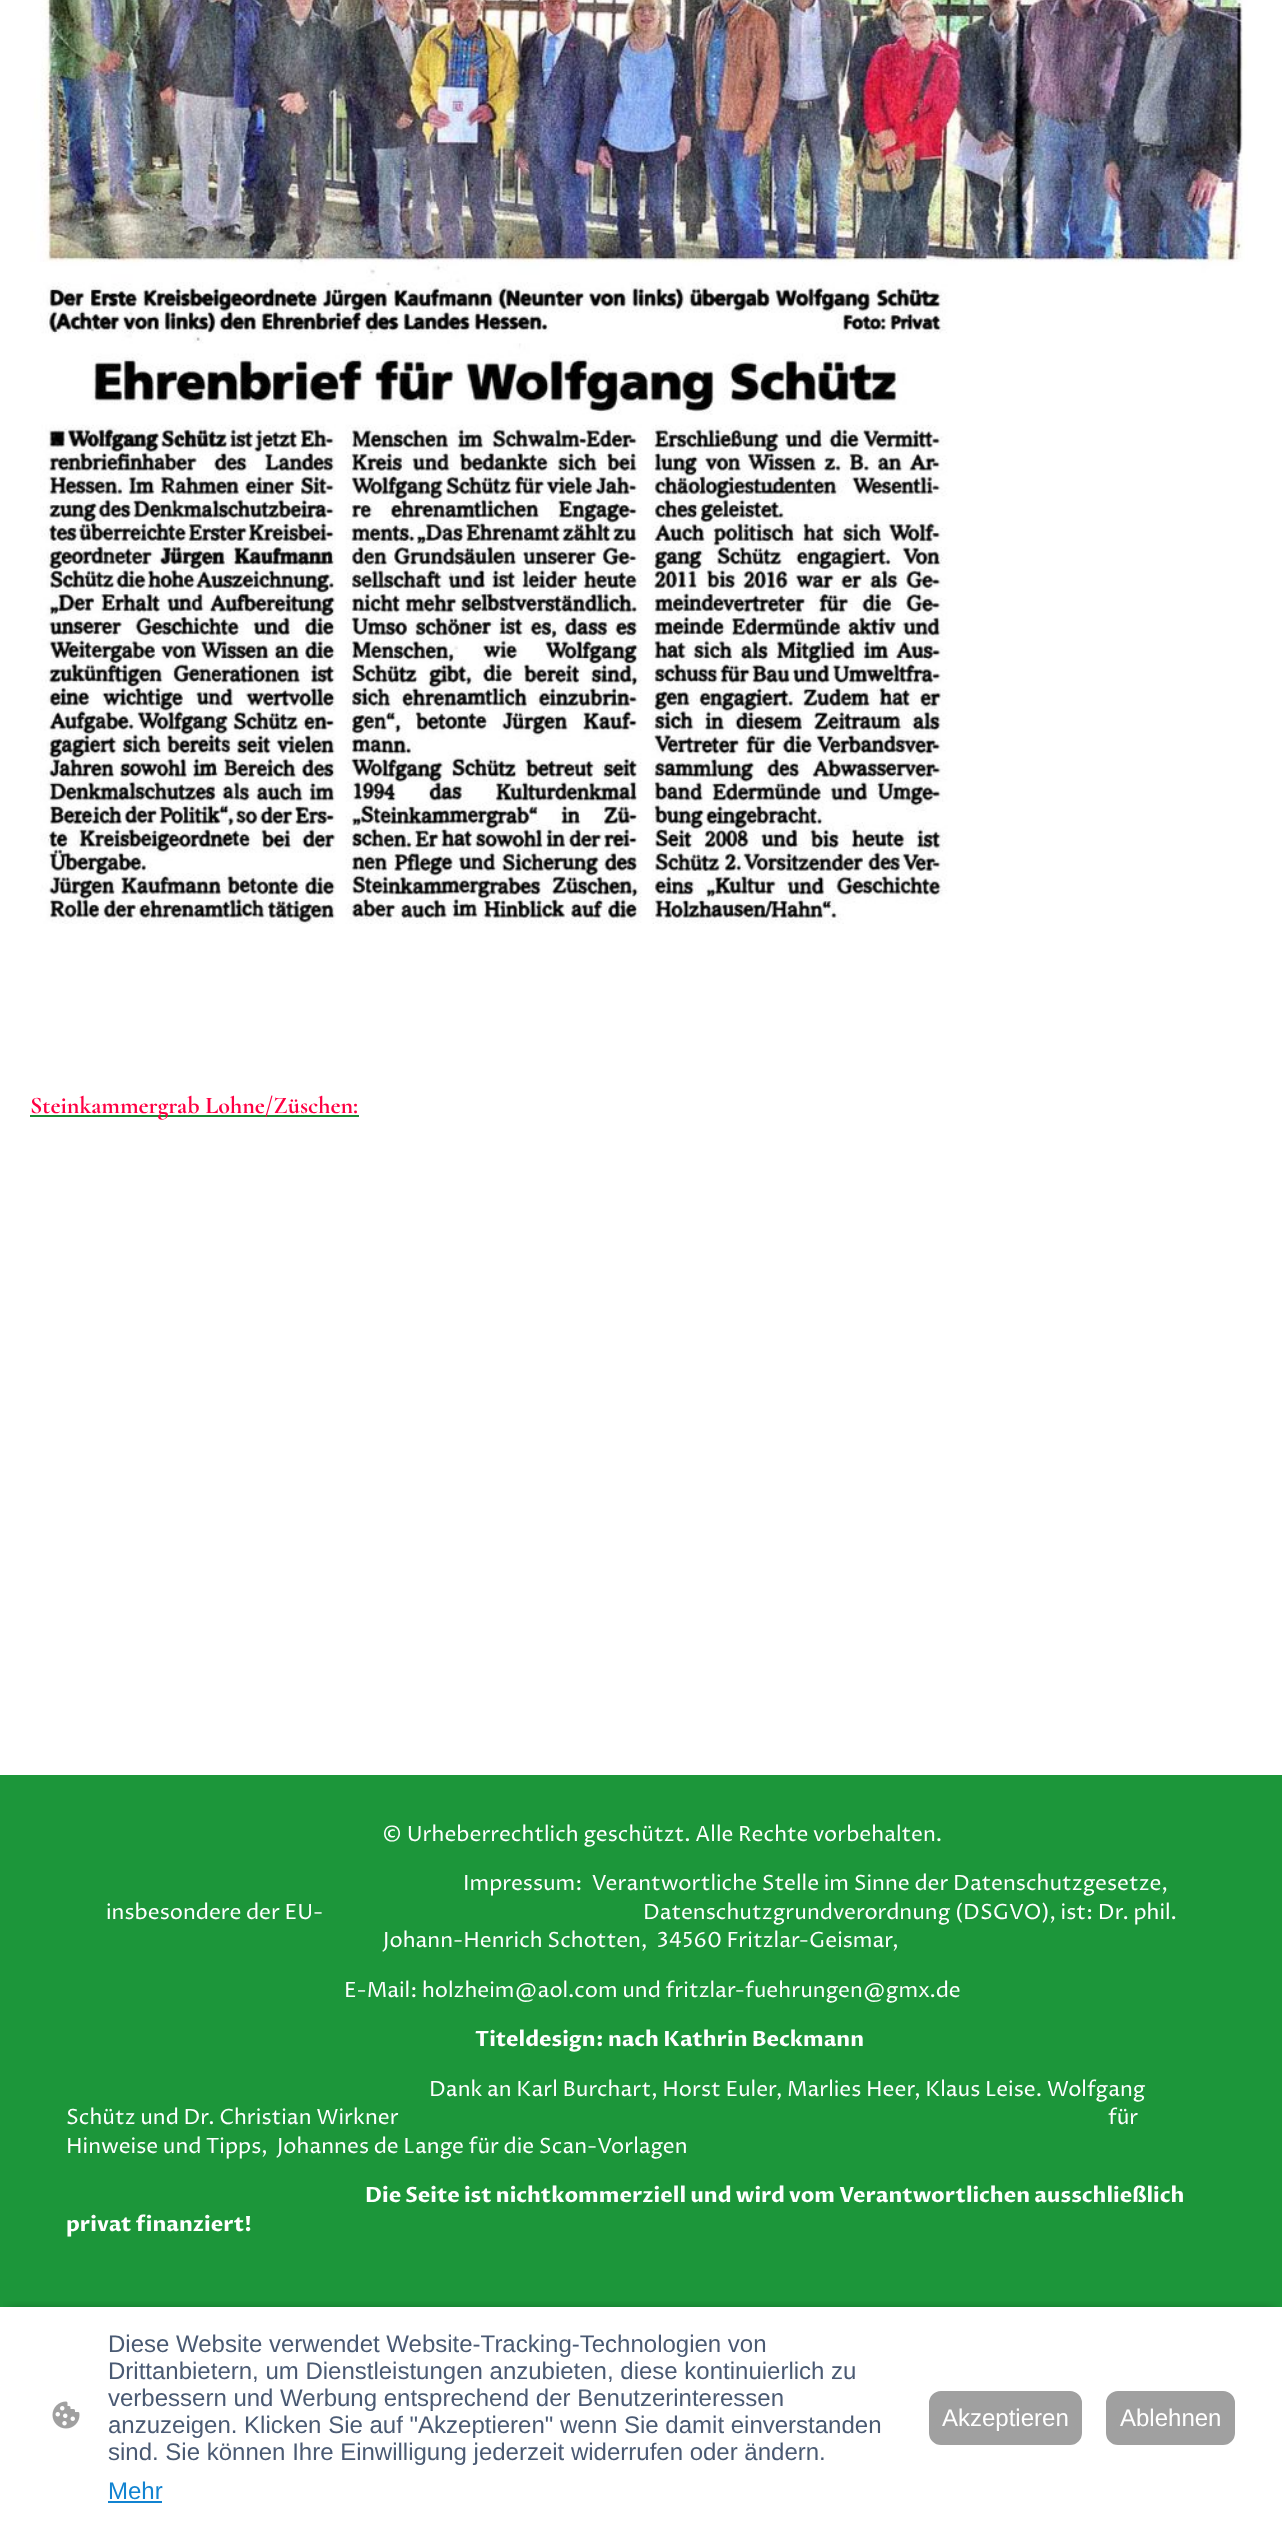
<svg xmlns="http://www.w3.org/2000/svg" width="1282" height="2529">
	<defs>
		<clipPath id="clip1"><rect x="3" y="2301" width="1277" height="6" /></clipPath>
	</defs>
	<rect width="100%" height="100%" fill="#FFFFFF" />
	<image x="30" y="0" width="1218" height="924" href="assets/img1.png" />
	<rect x="30" y="1115" width="329" height="2" fill="#198934" />
	<text x="30" y="1113" font-family="Cormorant Garamond" font-size="24" font-weight="700" fill="#FF0043">Steinkammergrab Lohne/Züschen:</text>
	<rect x="0" y="1775" width="1282" height="532" fill="#1C963A" />
	<g font-family="Proza Libre" font-size="21" fill="#FFFFFF">
		<text x="382" y="1841">© Urheberrechtlich geschützt. Alle Rechte vorbehalten.</text>
		<text x="463" y="1890" xml:space="preserve">Impressum:  Verantwortliche Stelle im Sinne der Datenschutzgesetze,</text>
		<text x="106" y="1919" xml:space="preserve">insbesondere der EU-                                                                     Datenschutzgrundverordnung (DSGVO), ist: Dr. phil.</text>
		<text x="383" y="1947" xml:space="preserve">Johann-Henrich Schotten,  34560 Fritzlar-Geismar,</text>
		<text x="344" y="1997">E-Mail: holzheim@aol.com und fritzlar-fuehrungen@gmx.de</text>
	</g>
	<text x="475" y="2046" font-family="Proza Libre" font-size="21" font-weight="700" fill="#FFFFFF">Titeldesign: nach Kathrin Beckmann</text>
	<g font-family="Proza Libre" font-size="21" fill="#FFFFFF">
		<text x="429" y="2096">Dank an Karl Burchart, Horst Euler, Marlies Heer, Klaus Leise. Wolfgang</text>
		<text x="66" y="2124" xml:space="preserve">Schütz und Dr. Christian Wirkner                                                                                                                                                         für</text>
		<text x="66" y="2153" xml:space="preserve">Hinweise und Tipps,  Johannes de Lange für die Scan-Vorlagen</text>
	</g>
	<g font-family="Proza Libre" font-size="21" font-weight="700" fill="#FFFFFF">
		<text x="365" y="2202">Die Seite ist nichtkommerziell und wird vom Verantwortlichen ausschließlich</text>
		<text x="66" y="2231">privat finanziert!</text>
	</g>
	<g clip-path="url(#clip1)">
		<rect x="9" y="2312" width="1265" height="204" fill="#000000" fill-opacity="0.63" filter="blur(6px)" />
	</g>
	<image x="52" y="2401" width="28" height="28" href="assets/img2.png" />
	<g font-family="Liberation Sans" font-size="24" fill="#4A5A73">
		<text x="108" y="2352">Diese Website verwendet Website-Tracking-Technologien von</text>
		<text x="108" y="2379">Drittanbietern, um Dienstleistungen anzubieten, diese kontinuierlich zu</text>
		<text x="108" y="2406">verbessern und Werbung entsprechend der Benutzerinteressen</text>
		<text x="108" y="2433">anzuzeigen. Klicken Sie auf "Akzeptieren" wenn Sie damit einverstanden</text>
		<text x="108" y="2460">sind. Sie können Ihre Einwilligung jederzeit widerrufen oder ändern.</text>
	</g>
	<text x="108" y="2499" font-family="Liberation Sans" font-size="24" fill="#1183D1">Mehr</text>
	<rect x="108" y="2501" width="54" height="2" fill="#1183D1" />
	<rect x="930" y="2392" width="151" height="52" rx="11" fill="#A0A0A0" stroke="#A0A0A0" stroke-width="2" />
	<text x="942" y="2426" font-family="Liberation Sans" font-size="24" fill="#FFFFFF">Akzeptieren</text>
	<rect x="1107" y="2392" width="127" height="52" rx="11" fill="#A0A0A0" stroke="#A0A0A0" stroke-width="2" />
	<text x="1120" y="2426" font-family="Liberation Sans" font-size="24" fill="#FFFFFF">Ablehnen</text>
</svg>
